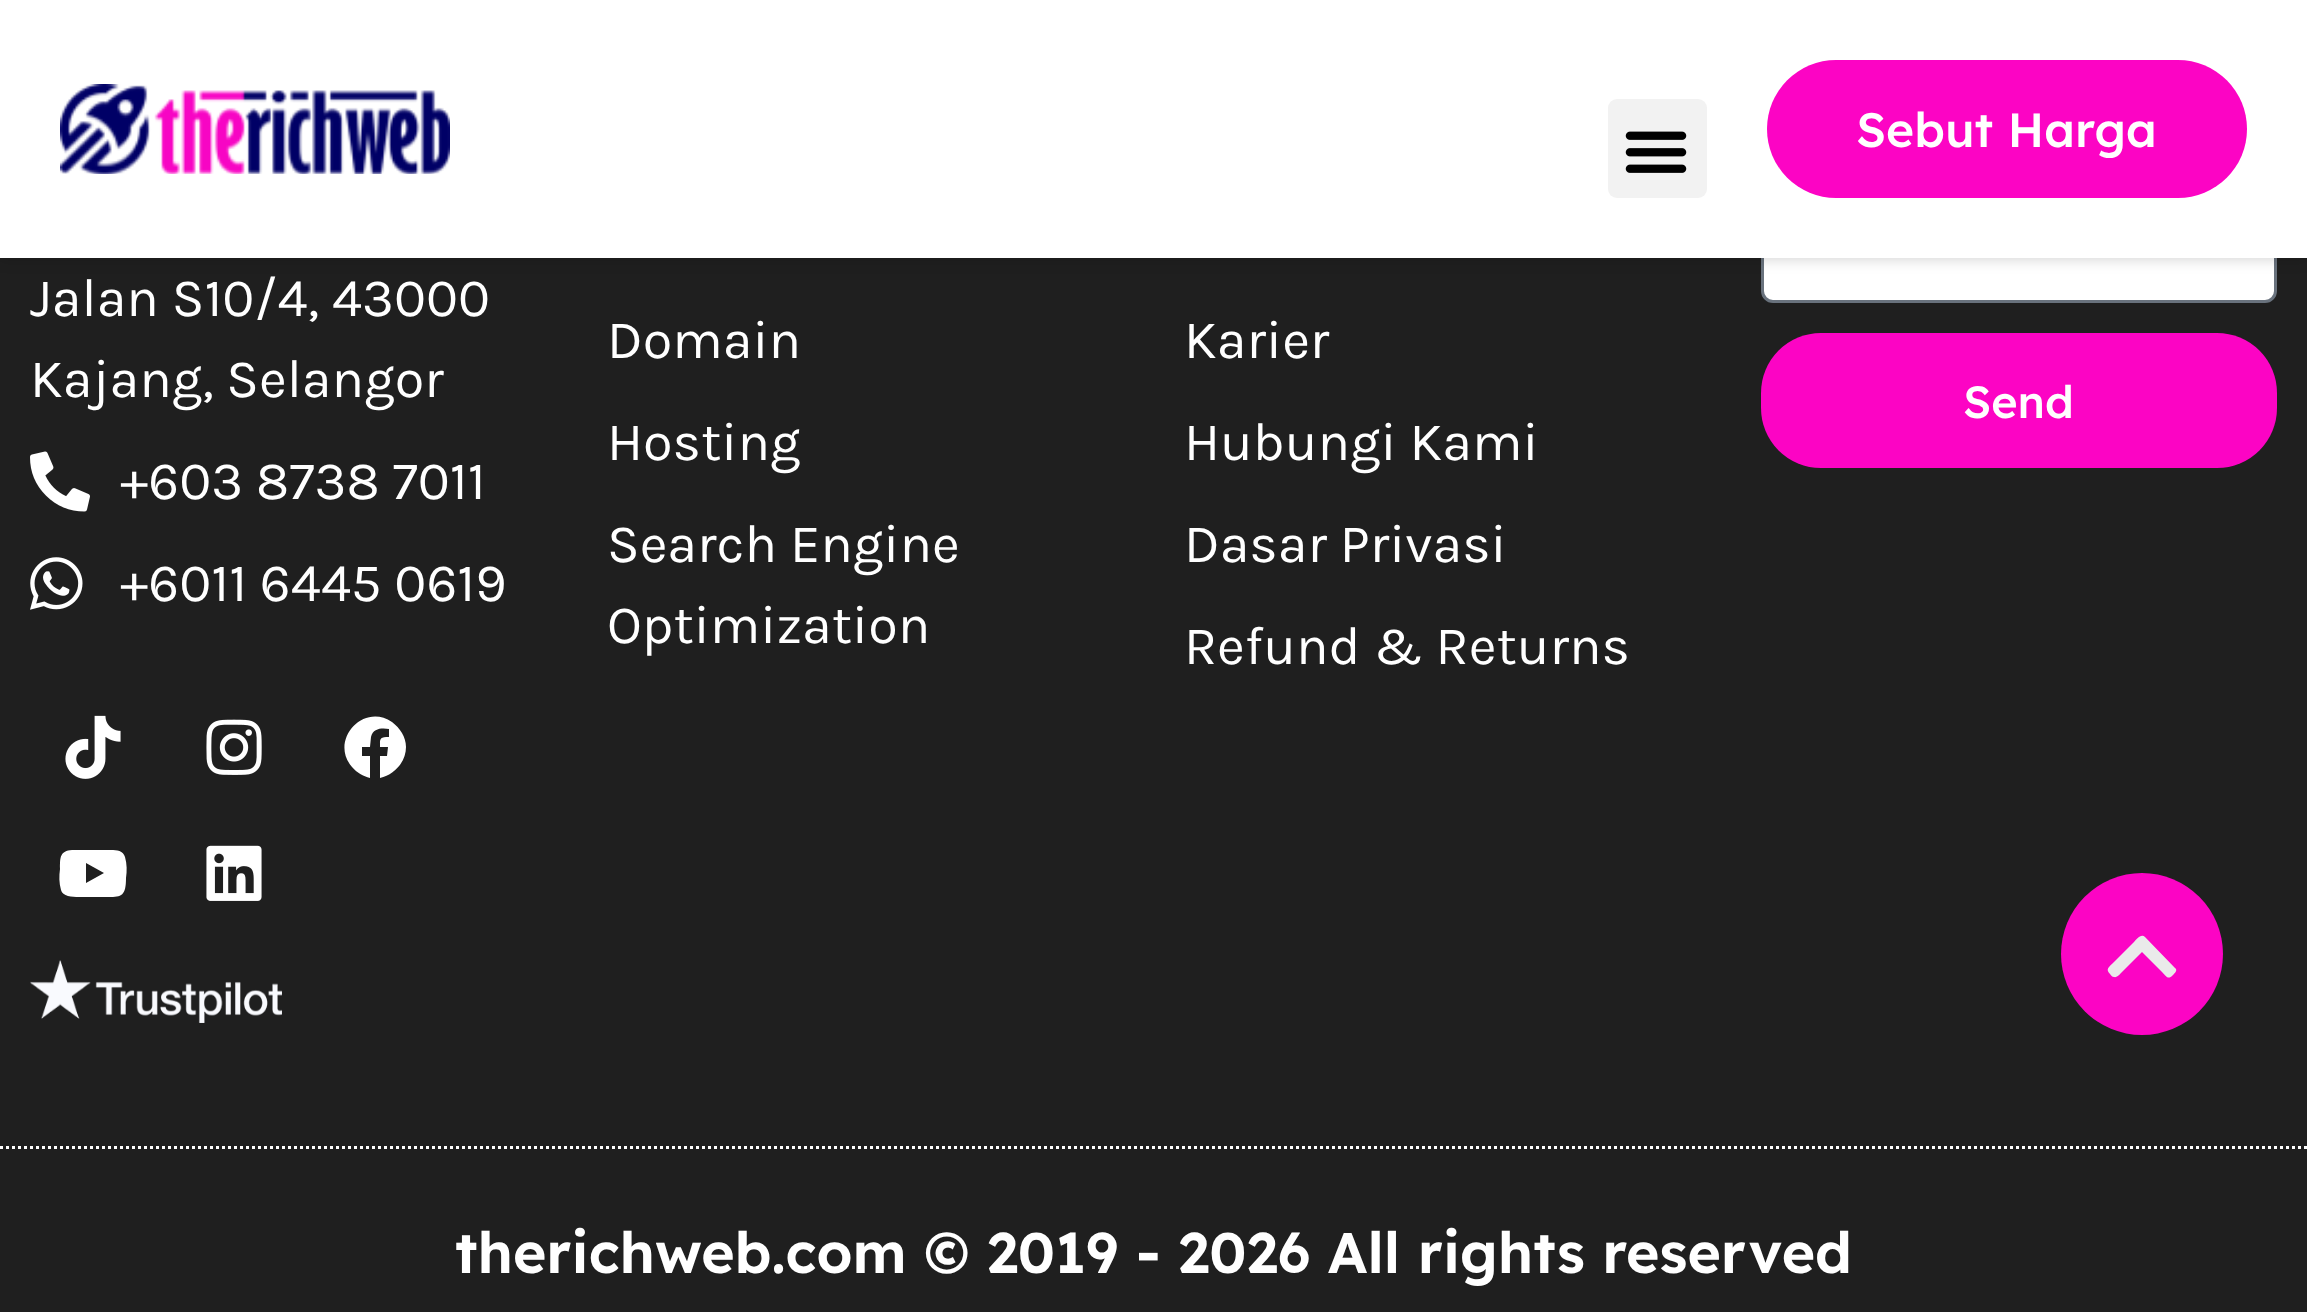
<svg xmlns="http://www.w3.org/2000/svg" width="2307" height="1312">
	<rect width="100%" height="100%" fill="#1F1F1F" />
	<rect x="1762.5" y="163.5" width="513" height="138" rx="10.5" fill="#FFFFFF" stroke="#69727D" stroke-width="3" />
	<rect x="0" y="0" width="2307" height="258" fill="#000000" fill-opacity="0.2" filter="blur(7.5px)" />
	<rect x="0" y="0" width="2307" height="258" fill="#FFFFFF" />
	<image x="60" y="84" width="390" height="90" href="assets/img1.png" />
	<rect x="1608" y="99" width="99" height="99" rx="9" fill="#F2F2F2" />
	<image x="1625" y="131" width="62" height="42" href="assets/img2.png" />
	<rect x="1767" y="60" width="480" height="138" rx="69" fill="#FC04C4" />
	<text x="1856" y="147" font-family="Lexend" font-size="48" font-weight="500" fill="#FFFFFF">Sebut Harga</text>
	<g font-family="Karla" font-size="54" fill="#FFFFFF">
		<text x="30" y="316">Jalan S10/4, 43000</text>
		<text x="30" y="397">Kajang, Selangor</text>
	</g>
	<image x="30" y="451" width="60" height="61" href="assets/img3.png" />
	<text x="120" y="499" font-family="Karla" font-size="54" fill="#FFFFFF">+603 8738 7011</text>
	<image x="30" y="557" width="53" height="53" href="assets/img4.png" />
	<text x="120" y="601" font-family="Karla" font-size="54" fill="#FFFFFF">+6011 6445 0619</text>
	<image x="65" y="715" width="56" height="64" href="assets/img5.png" />
	<image x="206" y="719" width="56" height="56" href="assets/img6.png" />
	<path d="M406 747C406 762 394 775 380 778V756H387L388 747H380C380 739 379 737 389 737V729C382 728 373 728 371 737L370 747H362V756H370V778C363 776 357 773 352 767C329 741 363 702 392 722C400 728 406 737 406 747Z" fill="#FFFFFF" />
	<path d="M125 857C127 864 127 871 126 878C126 899 120 897 100 897H84C77 897 63 898 61 890C59 883 59 876 60 869C60 857 60 851 72 850H87H107C113 850 123 849 125 857ZM86 883L104 873L86 863Z" fill="#FFFFFF" />
	<image x="206" y="845" width="56" height="56" href="assets/img7.png" />
	<image x="30" y="960" width="252" height="63" href="assets/img8.png" />
	<g font-family="Karla" font-size="54" fill="#FFFFFF">
		<text x="607" y="358">Domain</text>
		<text x="607" y="460">Hosting</text>
		<text x="607" y="562">Search Engine</text>
		<text x="607" y="643">Optimization</text>
		<text x="1184" y="358">Karier</text>
		<text x="1184" y="460">Hubungi Kami</text>
		<text x="1184" y="562">Dasar Privasi</text>
		<text x="1184" y="664">Refund &amp; Returns</text>
	</g>
	<rect x="1761" y="333" width="516" height="135" rx="60" fill="#FC04C4" />
	<text x="1963" y="418" font-family="Lexend" font-size="45" font-weight="500" fill="#FFFFFF">Send</text>
	<circle cx="2142" cy="954" r="81" fill="#FC04C4" />
	<path d="M2145 937L2175 968C2178 970 2175 973 2173 975C2168 980 2167 977 2162 972L2142 952L2122 972C2120 974 2117 978 2114 977C2112 977 2111 975 2110 974C2105 969 2109 967 2114 962L2134 942C2136 940 2141 933 2145 937Z" fill="#EAEAEA" />
	<path d="M0 1147.5H2307" fill="none" stroke="#FFFFFF" stroke-width="3" stroke-dasharray="3 3" />
	<text x="455" y="1273" font-family="Lexend" font-size="57" font-weight="600" fill="#FFFFFF">therichweb.com © 2019 - 2026 All rights reserved</text>
</svg>
